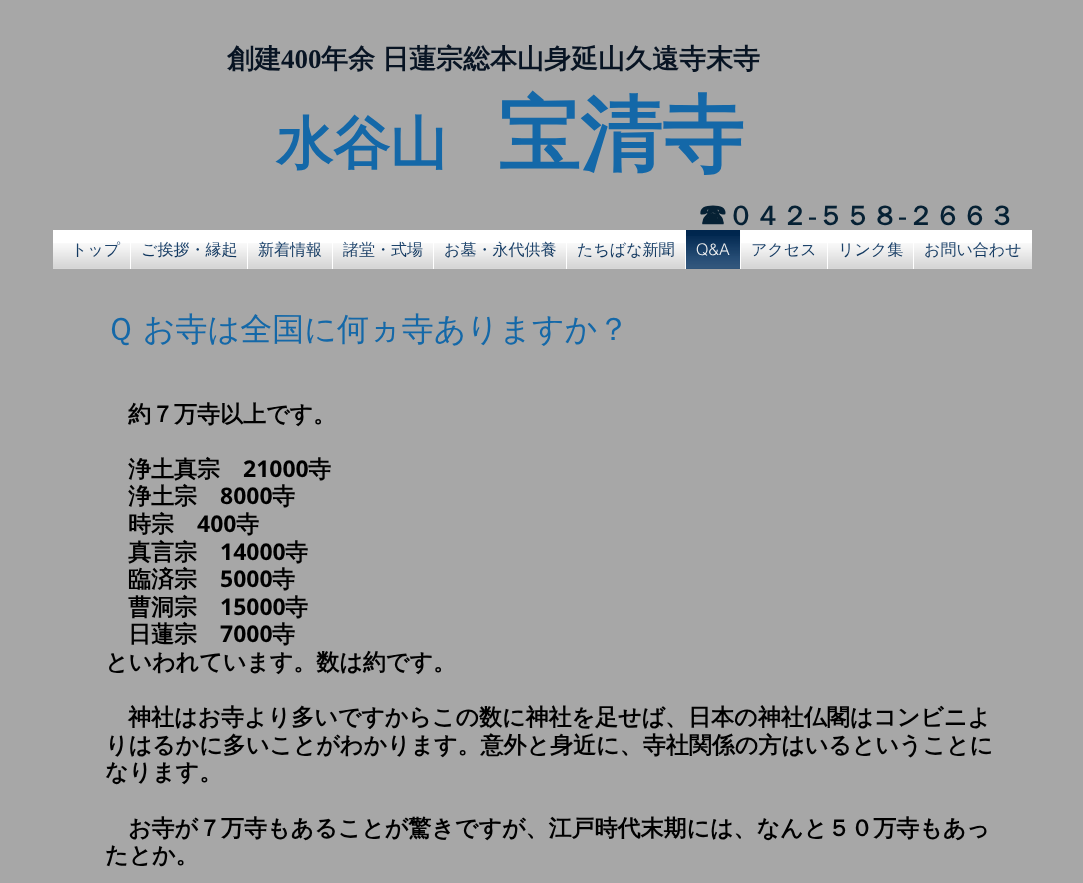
<svg xmlns="http://www.w3.org/2000/svg" width="1083" height="883">
	<rect width="100%" height="100%" fill="#A7A7A7" />
	<text x="227" y="68" font-family="WenQuanYi Zen Hei" font-size="27" font-weight="700" fill="#081423">創建</text>
	<text x="281" y="68" font-family="Liberation Serif" font-size="27" font-weight="700" fill="#081423">400</text>
	<g font-family="WenQuanYi Zen Hei" font-size="27" font-weight="700" fill="#081423">
		<text x="321" y="68">年余</text>
		<text x="382" y="68">日蓮宗総本山身延山久遠寺末寺</text>
	</g>
	<text x="276" y="163" font-family="WenQuanYi Zen Hei" font-size="57" font-weight="700" fill="#1468A8">水谷山</text>
	<text x="498" y="163" font-family="WenQuanYi Zen Hei" font-size="82" font-weight="700" fill="#1468A8">宝清寺</text>
	<text x="698" y="225" font-family="WenQuanYi Zen Hei" font-size="29" font-weight="700" fill="#062134">☎</text>
	<text x="727" y="225" font-family="WenQuanYi Zen Hei" font-size="27" font-weight="700" fill="#062134">０４２</text>
	<text x="808" y="225" font-family="Liberation Serif" font-size="27" font-weight="700" fill="#062134">-</text>
	<text x="817" y="225" font-family="WenQuanYi Zen Hei" font-size="27" font-weight="700" fill="#062134">５５８</text>
	<text x="898" y="225" font-family="Liberation Serif" font-size="27" font-weight="700" fill="#062134">-</text>
	<text x="907" y="225" font-family="WenQuanYi Zen Hei" font-size="27" font-weight="700" fill="#062134">２６６３</text>
	<rect x="53" y="230" width="633" height="39" fill="#FFFFFF" />
	<image x="53" y="243" width="8" height="26" href="assets/img1.png" />
	<text x="71" y="255" font-family="WenQuanYi Zen Hei" font-size="16" font-weight="500" fill="#002E5D">トップ</text>
	<image x="76" y="241" width="44" height="16" href="assets/img2.png" />
	<image x="61" y="243" width="69" height="26" href="assets/img3.png" />
	<text x="141" y="255" font-family="WenQuanYi Zen Hei" font-size="16" font-weight="500" fill="#002E5D">ご挨拶・縁起</text>
	<image x="142" y="242" width="94" height="15" href="assets/img4.png" />
	<image x="131" y="243" width="116" height="26" href="assets/img5.png" />
	<text x="258" y="255" font-family="WenQuanYi Zen Hei" font-size="16" font-weight="500" fill="#002E5D">新着情報</text>
	<image x="258" y="241" width="62" height="16" href="assets/img6.png" />
	<image x="248" y="243" width="84" height="26" href="assets/img7.png" />
	<text x="343" y="255" font-family="WenQuanYi Zen Hei" font-size="16" font-weight="500" fill="#002E5D">諸堂・式場</text>
	<image x="342" y="241" width="80" height="16" href="assets/img8.png" />
	<image x="333" y="243" width="100" height="26" href="assets/img9.png" />
	<text x="444" y="255" font-family="WenQuanYi Zen Hei" font-size="16" font-weight="500" fill="#002E5D">お墓・永代供養</text>
	<image x="445" y="241" width="110" height="17" href="assets/img10.png" />
	<image x="434" y="243" width="132" height="26" href="assets/img11.png" />
	<text x="577" y="255" font-family="WenQuanYi Zen Hei" font-size="16" font-weight="500" fill="#002E5D">たちばな新聞</text>
	<image x="578" y="241" width="96" height="17" href="assets/img12.png" />
	<image x="567" y="243" width="118" height="26" href="assets/img13.png" />
	<rect x="686" y="230" width="54" height="39" fill="#002E5D" />
	<text x="696" y="255" font-family="helvetica" font-size="16" font-weight="300" fill="#FFFFFF">Q&amp;A</text>
	<image x="686" y="230" width="54" height="26" href="assets/img14.png" />
	<image x="686" y="236" width="54" height="33" href="assets/img15.png" />
	<rect x="740" y="230" width="292" height="39" fill="#FFFFFF" />
	<text x="751" y="255" font-family="WenQuanYi Zen Hei" font-size="16" font-weight="500" fill="#002E5D">アクセス</text>
	<image x="752" y="243" width="62" height="14" href="assets/img16.png" />
	<image x="741" y="243" width="86" height="26" href="assets/img17.png" />
	<text x="838" y="255" font-family="WenQuanYi Zen Hei" font-size="16" font-weight="500" fill="#002E5D">リンク集</text>
	<image x="841" y="242" width="61" height="15" href="assets/img18.png" />
	<image x="828" y="243" width="85" height="26" href="assets/img19.png" />
	<text x="924" y="255" font-family="WenQuanYi Zen Hei" font-size="16" font-weight="500" fill="#002E5D">お問い合わせ</text>
	<image x="925" y="242" width="96" height="16" href="assets/img20.png" />
	<image x="914" y="243" width="118" height="26" href="assets/img21.png" />
	<text x="105" y="340" word-spacing="-1" font-family="WenQuanYi Zen Hei" font-size="32" font-weight="500" fill="#1468A8">Ｑ お寺は全国に何ヵ寺ありますか？</text>
	<g font-family="WenQuanYi Zen Hei" font-size="23" font-weight="700" fill="#000000">
		<text x="128" y="422">約７万寺以上です。</text>
		<text x="128" y="477">浄土真宗</text>
	</g>
	<text x="243" y="477" font-family="Open Sans" font-size="23" font-weight="700" fill="#000000">21000</text>
	<g font-family="WenQuanYi Zen Hei" font-size="23" font-weight="700" fill="#000000">
		<text x="308" y="477">寺</text>
		<text x="128" y="504">浄土宗</text>
	</g>
	<text x="220" y="504" font-family="Open Sans" font-size="23" font-weight="700" fill="#000000">8000</text>
	<g font-family="WenQuanYi Zen Hei" font-size="23" font-weight="700" fill="#000000">
		<text x="272" y="504">寺</text>
		<text x="128" y="532">時宗</text>
	</g>
	<text x="197" y="532" font-family="Open Sans" font-size="23" font-weight="700" fill="#000000">400</text>
	<g font-family="WenQuanYi Zen Hei" font-size="23" font-weight="700" fill="#000000">
		<text x="236" y="532">寺</text>
		<text x="128" y="560">真言宗</text>
	</g>
	<text x="220" y="560" font-family="Open Sans" font-size="23" font-weight="700" fill="#000000">14000</text>
	<g font-family="WenQuanYi Zen Hei" font-size="23" font-weight="700" fill="#000000">
		<text x="285" y="560">寺</text>
		<text x="128" y="587">臨済宗</text>
	</g>
	<text x="220" y="587" font-family="Open Sans" font-size="23" font-weight="700" fill="#000000">5000</text>
	<g font-family="WenQuanYi Zen Hei" font-size="23" font-weight="700" fill="#000000">
		<text x="272" y="587">寺</text>
		<text x="128" y="615">曹洞宗</text>
	</g>
	<text x="220" y="615" font-family="Open Sans" font-size="23" font-weight="700" fill="#000000">15000</text>
	<g font-family="WenQuanYi Zen Hei" font-size="23" font-weight="700" fill="#000000">
		<text x="285" y="615">寺</text>
		<text x="128" y="642">日蓮宗</text>
	</g>
	<text x="220" y="642" font-family="Open Sans" font-size="23" font-weight="700" fill="#000000">7000</text>
	<g font-family="WenQuanYi Zen Hei" font-size="23" font-weight="700" fill="#000000">
		<text x="272" y="642">寺</text>
		<text x="105" y="670">といわれています。数は約です。</text>
		<text x="128" y="725">神社はお寺より多いですからこの数に神社を足せば、日本の神社仏閣はコンビニよ</text>
		<text x="105" y="753">りはるかに多いことがわかります。意外と身近に、寺社関係の方はいるということに</text>
		<text x="105" y="780">なります。</text>
		<text x="128" y="836">お寺が７万寺もあることが驚きですが、江戸時代末期には、なんと５０万寺もあっ</text>
		<text x="105" y="863">たとか。</text>
	</g>
</svg>
